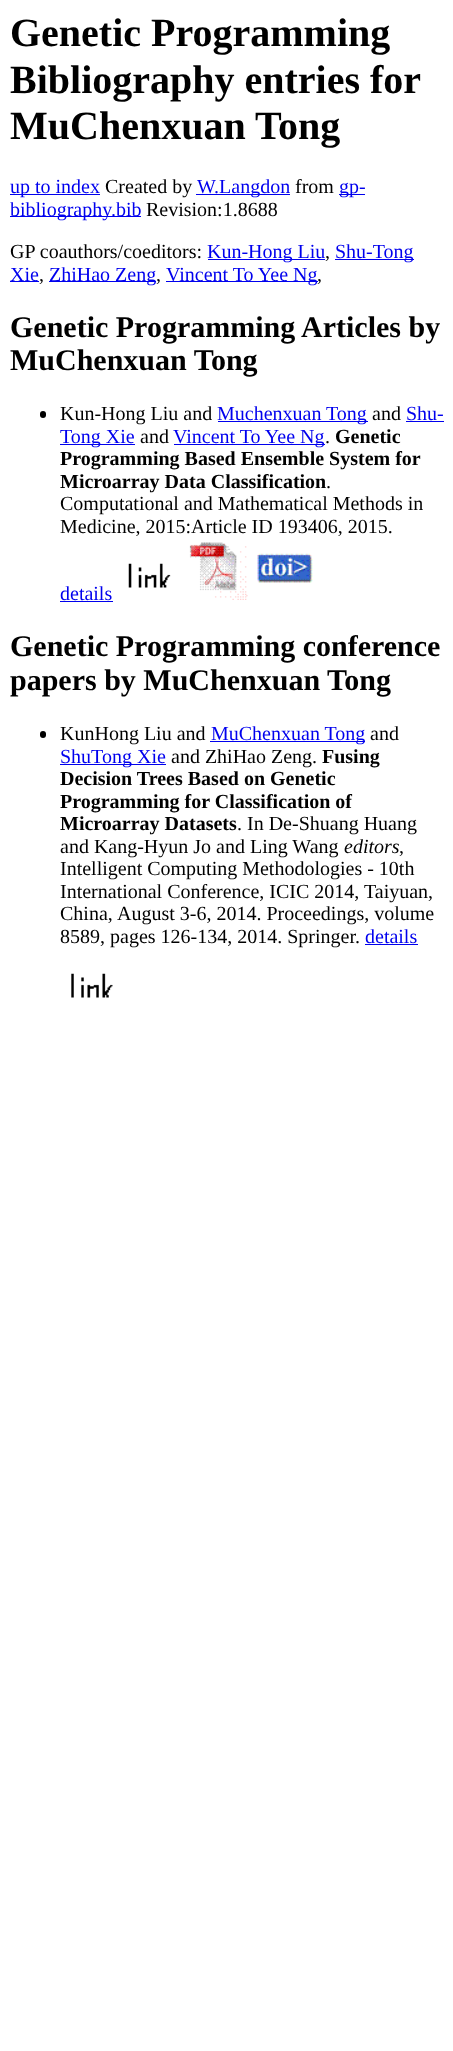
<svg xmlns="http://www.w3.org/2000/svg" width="453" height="2051">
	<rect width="100%" height="100%" fill="#FFFFFF" />
	<g font-family="Liberation Serif" font-size="40" font-weight="700" fill="#000000">
		<text x="10" y="46">Genetic Programming</text>
		<text x="10" y="93">Bibliography entries for</text>
		<text x="10" y="139">MuChenxuan Tong</text>
	</g>
	<rect x="10" y="194" width="90" height="1" fill="#0000EE" />
	<text x="10" y="193" font-family="Liberation Serif" font-size="20" fill="#0000EE">up to index</text>
	<text x="105" y="193" font-family="Liberation Serif" font-size="20" fill="#000000">Created by</text>
	<rect x="196" y="194" width="94" height="1" fill="#0000EE" />
	<text x="197" y="193" font-family="Liberation Serif" font-size="20" fill="#0000EE">W.Langdon</text>
	<text x="295" y="193" font-family="Liberation Serif" font-size="20" fill="#000000">from</text>
	<rect x="339" y="194" width="26" height="1" fill="#0000EE" />
	<text x="339" y="193" font-family="Liberation Serif" font-size="20" fill="#0000EE">gp-</text>
	<rect x="10" y="216" width="131" height="1" fill="#0000EE" />
	<text x="10" y="216" font-family="Liberation Serif" font-size="20" fill="#0000EE">bibliography.bib</text>
	<g font-family="Liberation Serif" font-size="20" fill="#000000">
		<text x="146" y="216">Revision:1.8688</text>
		<text x="10" y="258">GP coauthors/coeditors:</text>
	</g>
	<rect x="208" y="259" width="117" height="1" fill="#0000EE" />
	<text x="207" y="258" font-family="Liberation Serif" font-size="20" fill="#0000EE">Kun-Hong Liu</text>
	<text x="325" y="258" font-family="Liberation Serif" font-size="20" fill="#000000">,</text>
	<rect x="335" y="259" width="79" height="1" fill="#0000EE" />
	<text x="335" y="258" font-family="Liberation Serif" font-size="20" fill="#0000EE">Shu-Tong</text>
	<rect x="10" y="281" width="29" height="1" fill="#0000EE" />
	<text x="10" y="281" font-family="Liberation Serif" font-size="20" fill="#0000EE">Xie</text>
	<text x="39" y="281" font-family="Liberation Serif" font-size="20" fill="#000000">,</text>
	<rect x="49" y="281" width="107" height="1" fill="#0000EE" />
	<text x="49" y="281" font-family="Liberation Serif" font-size="20" fill="#0000EE">ZhiHao Zeng</text>
	<text x="156" y="281" font-family="Liberation Serif" font-size="20" fill="#000000">,</text>
	<rect x="166" y="281" width="152" height="1" fill="#0000EE" />
	<text x="166" y="281" font-family="Liberation Serif" font-size="20" fill="#0000EE">Vincent To Yee Ng</text>
	<text x="317" y="281" font-family="Liberation Serif" font-size="20" fill="#000000">,</text>
	<g font-family="Liberation Serif" font-size="30" font-weight="700" fill="#000000">
		<text x="10" y="337">Genetic Programming Articles by</text>
		<text x="10" y="370">MuChenxuan Tong</text>
	</g>
	<rect x="40" y="411" width="6" height="7" rx="3" fill="#000000" />
	<text x="60" y="420" font-family="Liberation Serif" font-size="20" fill="#000000">Kun-Hong Liu and</text>
	<rect x="218" y="421" width="150" height="1" fill="#0000EE" />
	<text x="217" y="420" font-family="Liberation Serif" font-size="20" fill="#0000EE">Muchenxuan Tong</text>
	<text x="372" y="420" font-family="Liberation Serif" font-size="20" fill="#000000">and</text>
	<text x="406" y="420" font-family="Liberation Serif" font-size="20" fill="#0000EE">Shu-</text>
	<rect x="406" y="421" width="38" height="1" fill="#0000EE" />
	<rect x="60" y="444" width="75" height="1" fill="#0000EE" />
	<text x="60" y="443" font-family="Liberation Serif" font-size="20" fill="#0000EE">Tong Xie</text>
	<text x="140" y="443" font-family="Liberation Serif" font-size="20" fill="#000000">and</text>
	<rect x="174" y="444" width="151" height="1" fill="#0000EE" />
	<text x="173" y="443" font-family="Liberation Serif" font-size="20" fill="#0000EE">Vincent To Yee Ng</text>
	<text x="325" y="443" font-family="Liberation Serif" font-size="20" fill="#000000">.</text>
	<g font-family="Liberation Serif" font-size="20" font-weight="700" fill="#000000">
		<text x="335" y="443">Genetic</text>
		<text x="60" y="465">Programming Based Ensemble System for</text>
		<text x="60" y="488">Microarray Data Classification</text>
	</g>
	<g font-family="Liberation Serif" font-size="20" fill="#000000">
		<text x="326" y="488">.</text>
		<text x="60" y="510">Computational and Mathematical Methods in</text>
		<text x="60" y="533">Medicine, 2015:Article ID 193406, 2015.</text>
	</g>
	<image x="128" y="563" width="43" height="25" href="assets/img1.png" />
	<image x="189" y="542" width="59" height="58" href="assets/img2.png" />
	<image x="257" y="553" width="56" height="30" href="assets/img3.png" />
	<text x="60" y="600" font-family="Liberation Serif" font-size="20" fill="#0000EE">details</text>
	<rect x="60" y="601" width="53" height="1" fill="#0000EE" />
	<g font-family="Liberation Serif" font-size="30" font-weight="700" fill="#000000">
		<text x="10" y="656">Genetic Programming conference</text>
		<text x="10" y="690">papers by MuChenxuan Tong</text>
	</g>
	<rect x="40" y="731" width="6" height="7" rx="3" fill="#000000" />
	<text x="60" y="740" font-family="Liberation Serif" font-size="20" fill="#000000">KunHong Liu and</text>
	<rect x="210" y="741" width="155" height="1" fill="#0000EE" />
	<text x="211" y="740" font-family="Liberation Serif" font-size="20" fill="#0000EE">MuChenxuan Tong</text>
	<text x="370" y="740" font-family="Liberation Serif" font-size="20" fill="#000000">and</text>
	<rect x="60" y="764" width="106" height="1" fill="#0000EE" />
	<text x="60" y="763" font-family="Liberation Serif" font-size="20" fill="#0000EE">ShuTong Xie</text>
	<text x="171" y="763" font-family="Liberation Serif" font-size="20" fill="#000000">and ZhiHao Zeng.</text>
	<g font-family="Liberation Serif" font-size="20" font-weight="700" fill="#000000">
		<text x="322" y="763">Fusing</text>
		<text x="60" y="785">Decision Trees Based on Genetic</text>
		<text x="60" y="808">Programming for Classification of</text>
		<text x="60" y="830">Microarray Datasets</text>
	</g>
	<g font-family="Liberation Serif" font-size="20" fill="#000000">
		<text x="237" y="830">. In De-Shuang Huang</text>
		<text x="60" y="853">and Kang-Hyun Jo and Ling Wang</text>
	</g>
	<text x="344" y="853" font-family="Liberation Serif" font-size="20" font-style="italic" fill="#000000">editors</text>
	<g font-family="Liberation Serif" font-size="20" fill="#000000">
		<text x="399" y="853">,</text>
		<text x="60" y="875">Intelligent Computing Methodologies - 10th</text>
		<text x="60" y="898">International Conference, ICIC 2014, Taiyuan,</text>
		<text x="60" y="920">China,</text>
		<text x="117" y="920">August 3-6, 2014. Proceedings, volume</text>
		<text x="60" y="943">8589, pages 126-134, 2014. Springer.</text>
	</g>
	<text x="365" y="943" font-family="Liberation Serif" font-size="20" fill="#0000EE">details</text>
	<rect x="365" y="944" width="53" height="1" fill="#0000EE" />
	<image x="71" y="973" width="42" height="25" href="assets/img4.png" />
</svg>
